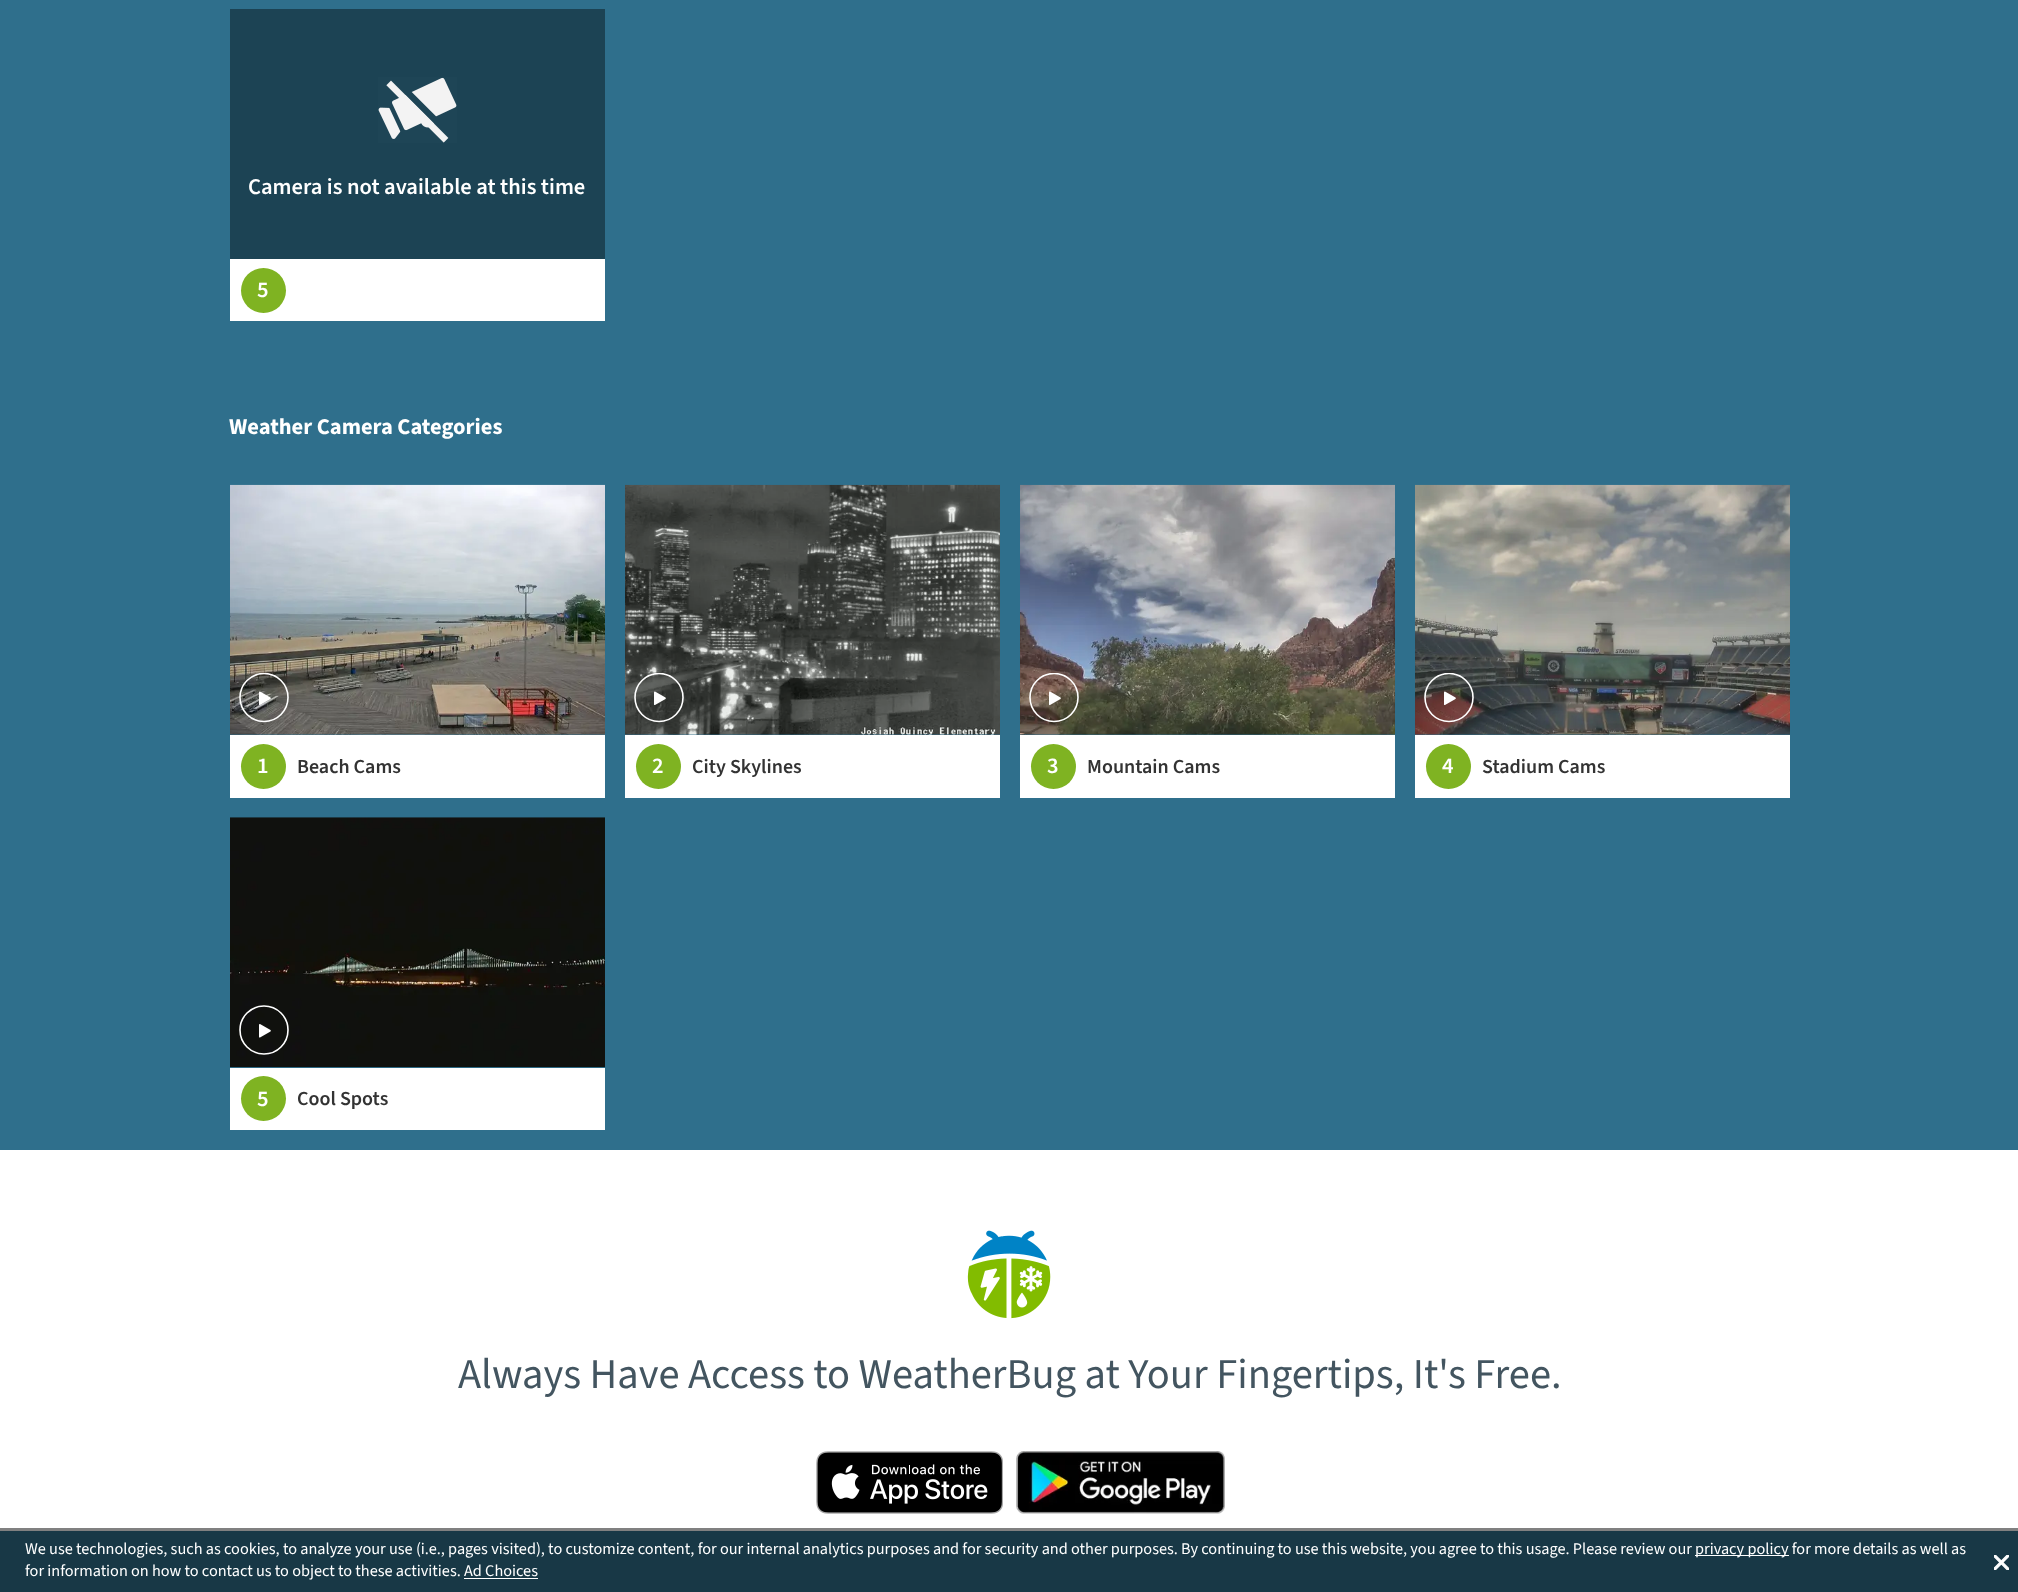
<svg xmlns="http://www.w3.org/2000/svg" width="2018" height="1592">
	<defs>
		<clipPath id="clip1"><rect x="239" y="673" width="50" height="50" /></clipPath>
		<clipPath id="clip2"><rect x="634" y="673" width="50" height="50" /></clipPath>
		<clipPath id="clip3"><rect x="1029" y="673" width="50" height="50" /></clipPath>
		<clipPath id="clip4"><rect x="1424" y="673" width="50" height="50" /></clipPath>
	</defs>
	<rect width="100%" height="100%" fill="#FFFFFF" />
	<rect x="0" y="1528" width="2018" height="3" fill="#808080" />
	<rect x="0" y="0" width="2018" height="1150" fill="#2F6F8C" />
	<rect x="230" y="9" width="375" height="250" fill="#1C4354" />
	<image x="378" y="77" width="79" height="66" href="assets/img1.png" />
	<text x="248" y="194" font-family="'Source Sans 3'" font-size="22.5" font-weight="600" fill="#FFFFFF">Camera is not available at this time</text>
	<rect x="230" y="259" width="375" height="62" fill="#FFFFFF" />
	<circle cx="263.5" cy="290.5" r="22.5" fill="#7FB322" />
	<text x="257" y="297" font-family="'Source Sans 3'" font-size="22.5" font-weight="600" fill="#FFFFFF">5</text>
	<text x="229" y="434" font-family="'Source Sans 3'" font-size="22.5" font-weight="700" fill="#FFFFFF">Weather Camera Categories</text>
	<image x="230" y="484" width="375" height="251" href="assets/img2.png" />
	<g clip-path="url(#clip1)">
		<circle cx="264" cy="697.5" r="24" fill="none" stroke="#FFFFFF" stroke-width="1.6" />
	</g>
	<path d="M270.5 697.5C271 698 271 698.5 270.5 699L260 705C259.5 705 259 705 259 704.5V692.5C259 691.5 259.5 691.5 260 691.5Z" fill="#FFFFFF" />
	<rect x="230" y="735" width="375" height="63" fill="#FFFFFF" />
	<circle cx="263.5" cy="766.5" r="22.5" fill="#7FB322" />
	<text x="257" y="773" font-family="'Source Sans 3'" font-size="22.5" font-weight="600" fill="#FFFFFF">1</text>
	<text x="297" y="773" font-family="'Source Sans 3'" font-size="20" font-weight="600" fill="#333333">Beach Cams</text>
	<image x="625" y="484" width="375" height="251" href="assets/img3.png" />
	<g clip-path="url(#clip2)">
		<circle cx="659" cy="697.5" r="24" fill="none" stroke="#FFFFFF" stroke-width="1.6" />
	</g>
	<path d="M665.5 697.5C666 698 666 698.5 665.5 699L655 705C654.5 705 654 705 654 704.5V692.5C654 691.5 654.5 691.5 655 691.5Z" fill="#FFFFFF" />
	<rect x="625" y="735" width="375" height="63" fill="#FFFFFF" />
	<circle cx="658.5" cy="766.5" r="22.5" fill="#7FB322" />
	<text x="652" y="773" font-family="'Source Sans 3'" font-size="22.5" font-weight="600" fill="#FFFFFF">2</text>
	<text x="692" y="773" font-family="'Source Sans 3'" font-size="20" font-weight="600" fill="#333333">City Skylines</text>
	<image x="1020" y="484" width="375" height="251" href="assets/img4.png" />
	<g clip-path="url(#clip3)">
		<circle cx="1054" cy="697.5" r="24" fill="none" stroke="#FFFFFF" stroke-width="1.6" />
	</g>
	<path d="M1060.5 697.5C1061 698 1061 698.5 1060.5 699L1050 705C1049.5 705 1049 705 1049 704.5V692.5C1049 691.5 1049.5 691.5 1050 691.5Z" fill="#FFFFFF" />
	<rect x="1020" y="735" width="375" height="63" fill="#FFFFFF" />
	<circle cx="1053.5" cy="766.5" r="22.5" fill="#7FB322" />
	<text x="1047" y="773" font-family="'Source Sans 3'" font-size="22.5" font-weight="600" fill="#FFFFFF">3</text>
	<text x="1087" y="773" font-family="'Source Sans 3'" font-size="20" font-weight="600" fill="#333333">Mountain Cams</text>
	<image x="1415" y="484" width="375" height="251" href="assets/img5.png" />
	<g clip-path="url(#clip4)">
		<circle cx="1449" cy="697.5" r="24" fill="none" stroke="#FFFFFF" stroke-width="1.6" />
	</g>
	<path d="M1455.5 697.5C1456 698 1456 698.5 1455.5 699L1445 705C1444.5 705 1444 705 1444 704.5V692.5C1444 691.5 1444.5 691.5 1445 691.5Z" fill="#FFFFFF" />
	<rect x="1415" y="735" width="375" height="63" fill="#FFFFFF" />
	<circle cx="1448.5" cy="766.5" r="22.5" fill="#7FB322" />
	<text x="1442" y="773" font-family="'Source Sans 3'" font-size="22.5" font-weight="600" fill="#FFFFFF">4</text>
	<text x="1482" y="773" font-family="'Source Sans 3'" font-size="20" font-weight="600" fill="#333333">Stadium Cams</text>
	<image x="230" y="817" width="375" height="251" href="assets/img6.png" />
	<circle cx="264" cy="1030" r="24" fill="none" stroke="#FFFFFF" stroke-width="1.6" />
	<path d="M270.5 1030C271 1030.5 271 1031 270.5 1031.5L260 1037.5C259.5 1037.5 259 1037.5 259 1037V1025C259 1024 259.5 1024 260 1024Z" fill="#FFFFFF" />
	<rect x="230" y="1068" width="375" height="62" fill="#FFFFFF" />
	<circle cx="263.5" cy="1098.5" r="22.5" fill="#7FB322" />
	<text x="257" y="1106" font-family="'Source Sans 3'" font-size="22.5" font-weight="600" fill="#FFFFFF">5</text>
	<text x="297" y="1105" font-family="'Source Sans 3'" font-size="20" font-weight="600" fill="#333333">Cool Spots</text>
	<image x="967" y="1230" width="84" height="89" href="assets/img7.png" />
	<text x="458" y="1388" font-family="'Source Sans 3'" font-size="42.5" fill="#435560">Always Have Access to WeatherBug at Your Fingertips, It's Free.</text>
	<image x="816" y="1451" width="187" height="63" href="assets/img8.png" />
	<image x="1016" y="1451" width="209" height="63" href="assets/img9.png" />
	<rect x="0" y="1531" width="2018" height="61" fill="#183846" />
	<text x="25" y="1554" font-family="'Source Sans 3'" font-size="16.25" fill="#FFFFFF">We use technologies, such as cookies, to analyze your use (i.e., pages visited), to customize content, for our internal analytics purposes and for security and other purposes. By continuing to use this website, you agree to this usage. Please review our</text>
	<rect x="1695" y="1555" width="94" height="1" fill="#FFFFFF" />
	<g font-family="'Source Sans 3'" font-size="16.25" fill="#FFFFFF">
		<text x="1695" y="1554">privacy policy for more details as well as</text>
		<text x="25" y="1576">for information on how to contact us to object to these activities. Ad Choices</text>
	</g>
	<rect x="464" y="1578" width="74" height="1" fill="#FFFFFF" />
	<image x="1994" y="1555" width="15" height="15" href="assets/img10.png" />
</svg>
